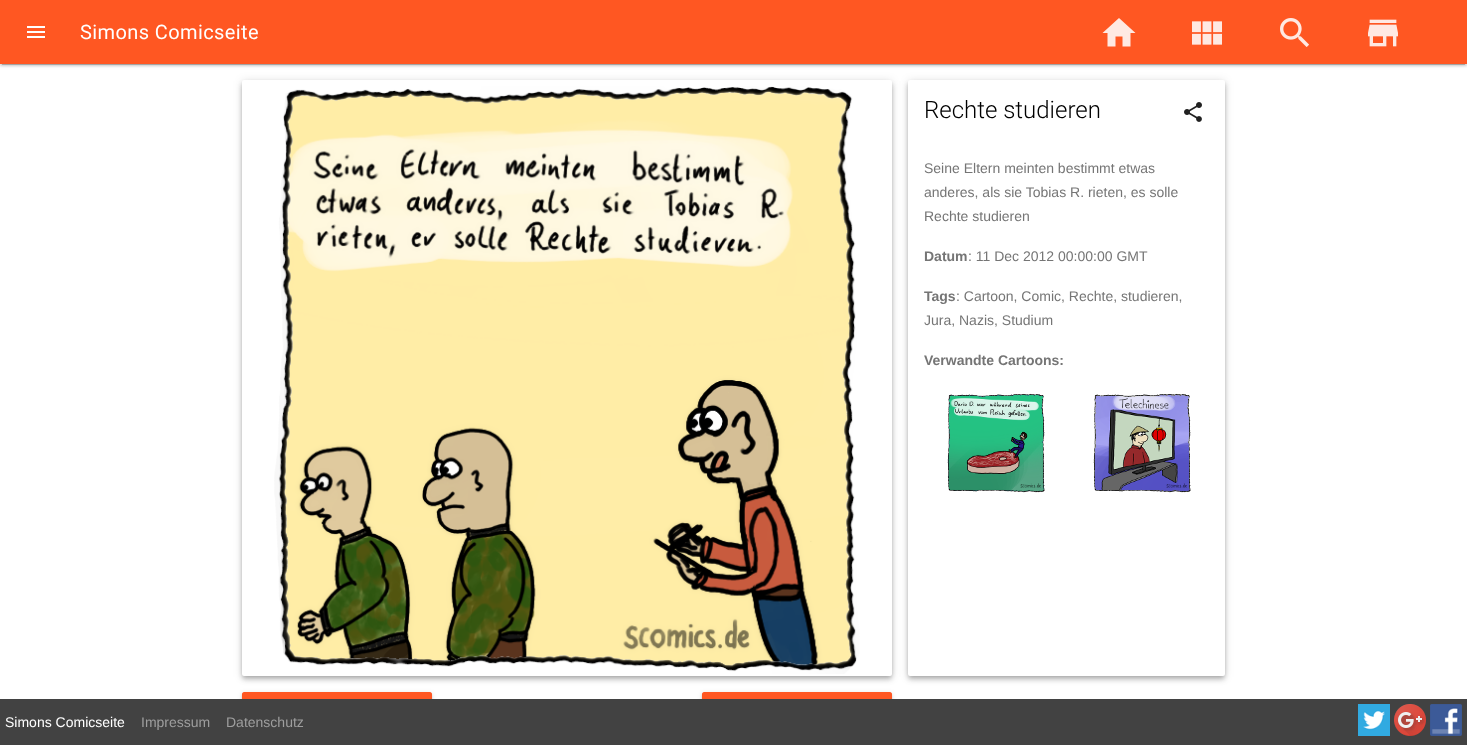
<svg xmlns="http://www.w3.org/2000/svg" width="1467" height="745">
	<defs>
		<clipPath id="clip1"><rect x="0" y="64" width="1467" height="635" /></clipPath>
	</defs>
	<rect width="100%" height="100%" fill="#FFFFFF" />
	<rect x="0" y="1" width="1467" height="64" fill="#000000" fill-opacity="0.12" filter="blur(2.5px)" />
	<rect x="2" y="5" width="1463" height="60" fill="#000000" fill-opacity="0.2" filter="blur(0.5px)" />
	<rect x="0" y="2" width="1467" height="64" fill="#000000" fill-opacity="0.14" filter="blur(1px)" />
	<rect x="0" y="0" width="1467" height="64" fill="#FF5722" />
	<image x="27" y="26" width="18" height="12" href="assets/img1.png" />
	<text x="80" y="39" font-family="Roboto" font-size="20" letter-spacing="0.4" fill="#FFFFFF">Simons Comicseite</text>
	<path d="M1115.5 46.5H1107.5V33H1102.5L1119 18L1135.5 33H1130.5V46.5H1122.5V36.5H1115.5Z" fill="#FFE9E2" />
	<image x="1192" y="21" width="30" height="24" href="assets/img2.png" />
	<image x="1280" y="18" width="29" height="29" href="assets/img3.png" />
	<image x="1368" y="19" width="30" height="28" href="assets/img4.png" />
	<rect x="243" y="83" width="648" height="594" rx="1" fill="#000000" fill-opacity="0.2" filter="blur(2px)" />
	<rect x="0" y="699" width="1467" height="46" fill="#424242" />
	<g clip-path="url(#clip1)">
		<rect x="242" y="693" width="190" height="36" rx="2" fill="#000000" fill-opacity="0.12" filter="blur(2.5px)" />
		<rect x="242" y="694" width="190" height="36" rx="2" fill="#000000" fill-opacity="0.14" filter="blur(1px)" />
	</g>
	<path d="M244 692H430C431 692 432 693 432 694V699H242V694C242 693 243 692 244 692Z" fill="#FF5722" />
	<g clip-path="url(#clip1)">
		<rect x="702" y="693" width="190" height="36" rx="2" fill="#000000" fill-opacity="0.12" filter="blur(2.5px)" />
		<rect x="702" y="694" width="190" height="36" rx="2" fill="#000000" fill-opacity="0.14" filter="blur(1px)" />
	</g>
	<path d="M704 692H890C891 692 892 693 892 694V699H702V694C702 693 703 692 704 692Z" fill="#FF5722" />
	<rect x="242" y="81" width="650" height="596" rx="2" fill="#000000" fill-opacity="0.12" filter="blur(5px)" />
	<rect x="242" y="84" width="650" height="596" rx="2" fill="#000000" fill-opacity="0.14" filter="blur(2.5px)" />
	<rect x="242" y="80" width="650" height="596" rx="2" fill="#FFFFFF" />
	<image x="274" y="86" width="586" height="588" href="assets/img5.png" />
	<rect x="909" y="83" width="315" height="594" rx="1" fill="#000000" fill-opacity="0.2" filter="blur(2px)" />
	<rect x="908" y="81" width="317" height="596" rx="2" fill="#000000" fill-opacity="0.12" filter="blur(5px)" />
	<rect x="908" y="84" width="317" height="596" rx="2" fill="#000000" fill-opacity="0.14" filter="blur(2.5px)" />
	<rect x="908" y="80" width="317" height="596" rx="2" fill="#FFFFFF" />
	<text x="924" y="118" font-family="Roboto" font-size="24" font-weight="300" fill="#000000">Rechte studieren</text>
	<image x="1184" y="102" width="18" height="20" href="assets/img6.png" />
	<g font-family="Liberation Sans" font-size="14" fill="#757575">
		<text x="924" y="173">Seine Eltern meinten bestimmt etwas</text>
		<text x="924" y="197">anderes, als sie Tobias R. rieten, es solle</text>
		<text x="924" y="221">Rechte studieren</text>
	</g>
	<text x="924" y="261" font-family="Liberation Sans" font-size="14" font-weight="700" fill="#757575">Datum</text>
	<text x="968" y="261" font-family="Liberation Sans" font-size="14" fill="#757575">: 11 Dec 2012 00:00:00 GMT</text>
	<text x="924" y="301" font-family="Liberation Sans" font-size="14" font-weight="700" fill="#757575">Tags</text>
	<g font-family="Liberation Sans" font-size="14" fill="#757575">
		<text x="956" y="301">: Cartoon, Comic, Rechte, studieren,</text>
		<text x="924" y="325">Jura, Nazis, Studium</text>
	</g>
	<text x="924" y="365" font-family="Liberation Sans" font-size="14" font-weight="700" fill="#757575">Verwandte Cartoons:</text>
	<image x="947" y="393" width="98" height="100" href="assets/img7.png" />
	<image x="1093" y="393" width="98" height="100" href="assets/img8.png" />
	<text x="5" y="727" font-family="Liberation Sans" font-size="14" fill="#FFFFFF">Simons Comicseite</text>
	<g font-family="Liberation Sans" font-size="14" fill="#9E9E9E">
		<text x="141" y="727">Impressum</text>
		<text x="226" y="727">Datenschutz</text>
	</g>
	<image x="1358" y="704" width="32" height="32" href="assets/img9.png" />
	<image x="1394" y="704" width="32" height="32" href="assets/img10.png" />
	<image x="1430" y="704" width="32" height="32" href="assets/img11.png" />
</svg>
